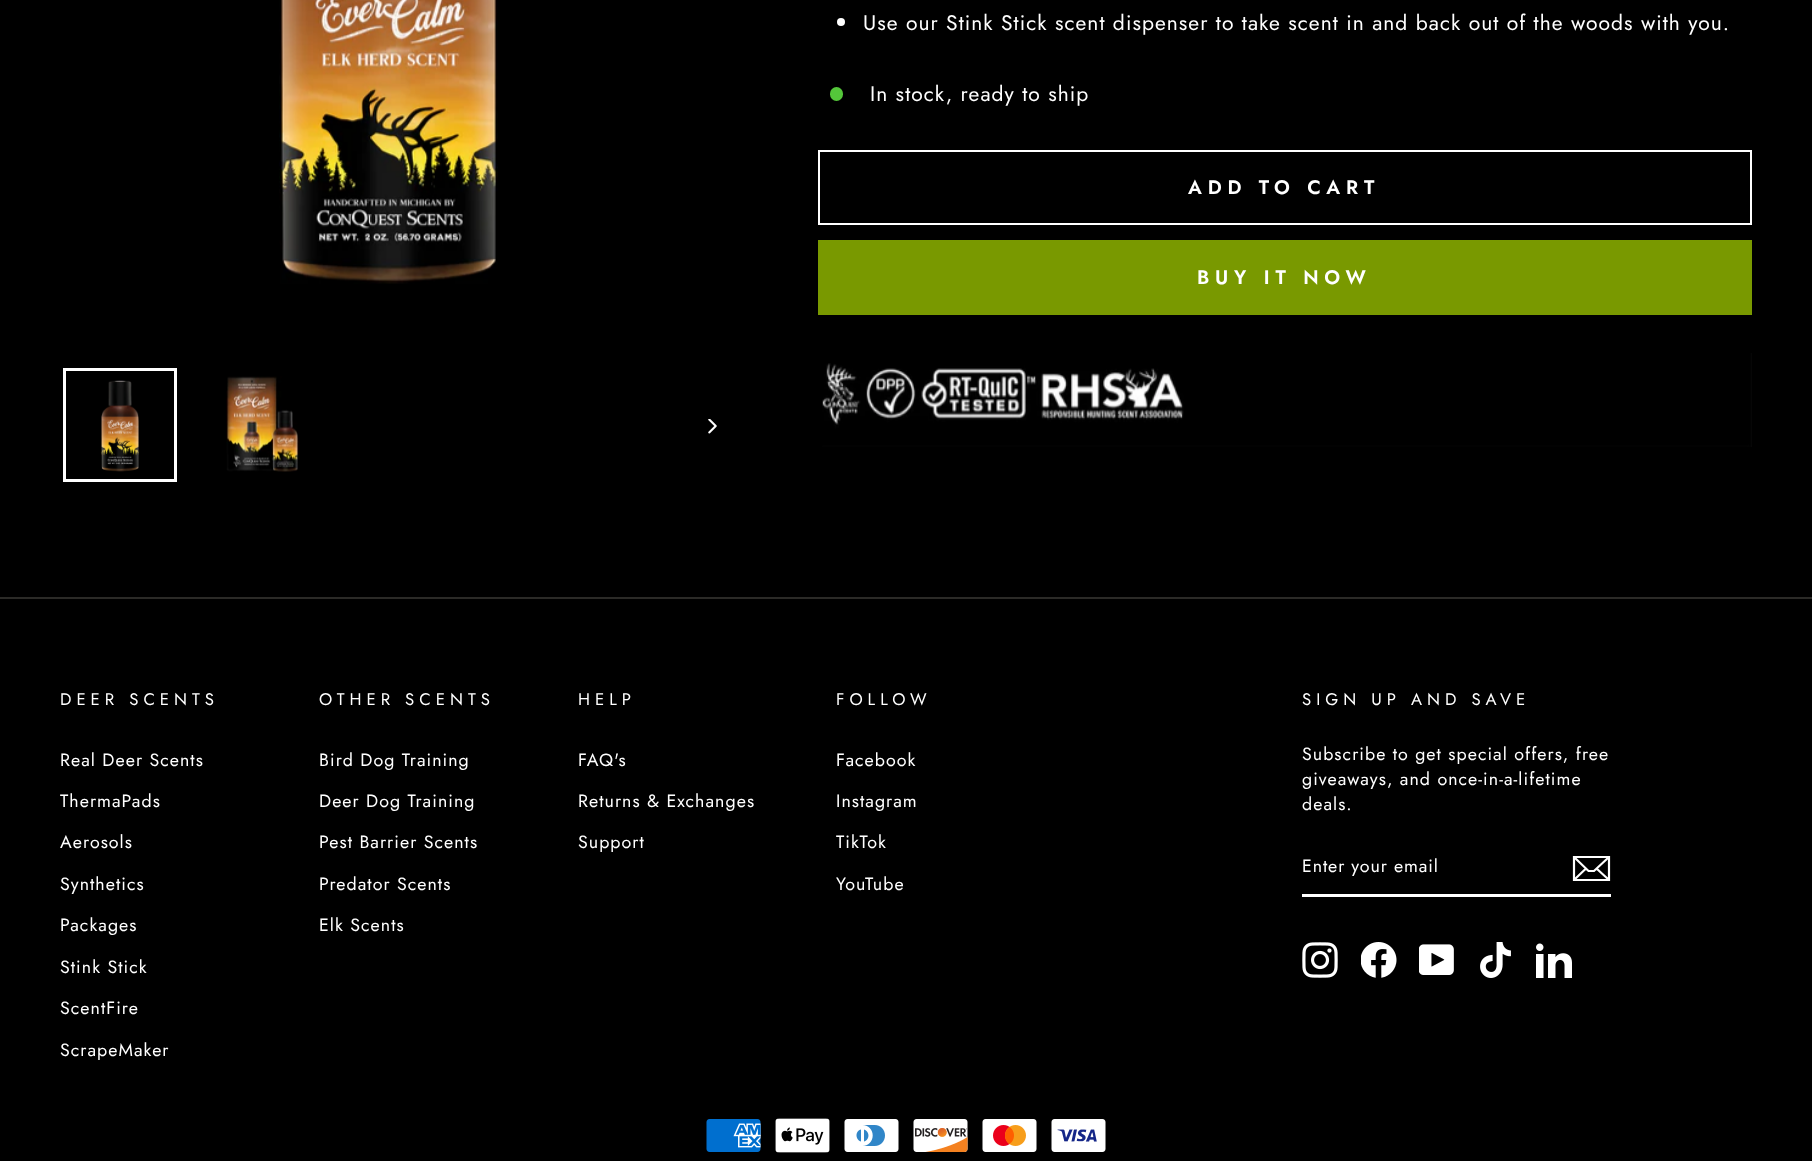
<svg xmlns="http://www.w3.org/2000/svg" width="1812" height="1161">
	<rect width="100%" height="100%" fill="#000000" />
	<image x="279" y="0" width="219" height="284" href="assets/img1.png" />
	<image x="101" y="380" width="38" height="92" href="assets/img2.png" />
	<rect x="64.5" y="369.5" width="111" height="111" fill="none" stroke="#FFFFFF" stroke-width="3" />
	<image x="226" y="376" width="73" height="96" href="assets/img3.png" />
	<image x="708" y="419" width="9" height="15" href="assets/img4.png" />
	<circle cx="841" cy="22" r="4" fill="#FFFFFF" />
	<text x="863" y="30" font-family="Jost" font-size="21" letter-spacing="1.05" fill="#FFFFFF">Use our Stink Stick scent dispenser to take scent in and back out of the woods with you.</text>
	<rect x="830" y="87" width="13" height="14" rx="6.5" fill="#54C63A" />
	<text x="870" y="101" font-family="Jost" font-size="21" letter-spacing="1.05" fill="#FFFFFF">In stock, ready to ship</text>
	<rect x="819" y="151" width="932" height="73" fill="none" stroke="#FFFFFF" stroke-width="2" />
	<text x="1188" y="194" font-family="Jost" font-size="19.5" font-weight="600" letter-spacing="5.8" fill="#FFFFFF">ADD TO CART</text>
	<rect x="818" y="240" width="934" height="75" fill="#799900" />
	<text x="1197" y="284" font-family="Jost" font-size="19.5" font-weight="600" letter-spacing="5.8" fill="#FFFFFF">BUY IT NOW</text>
	<image x="822" y="353" width="930" height="94" href="assets/img5.png" />
	<rect x="0" y="597" width="1812" height="2" fill="#2B2A27" />
	<text x="60" y="705" font-family="Jost" font-size="16.75" letter-spacing="5" fill="#FFFFFF">DEER SCENTS</text>
	<g font-family="Jost" font-size="17.8" letter-spacing="1.05" fill="#FFFFFF">
		<text x="60" y="766">Real Deer Scents</text>
		<text x="60" y="807">ThermaPads</text>
		<text x="60" y="848">Aerosols</text>
		<text x="60" y="890">Synthetics</text>
		<text x="60" y="931">Packages</text>
		<text x="60" y="973">Stink Stick</text>
		<text x="60" y="1014">ScentFire</text>
		<text x="60" y="1056">ScrapeMaker</text>
	</g>
	<text x="319" y="705" font-family="Jost" font-size="16.75" letter-spacing="5" fill="#FFFFFF">OTHER SCENTS</text>
	<g font-family="Jost" font-size="17.8" letter-spacing="1.05" fill="#FFFFFF">
		<text x="319" y="766">Bird Dog Training</text>
		<text x="319" y="807">Deer Dog Training</text>
		<text x="319" y="848">Pest Barrier Scents</text>
		<text x="319" y="890">Predator Scents</text>
		<text x="319" y="931">Elk Scents</text>
	</g>
	<text x="578" y="705" font-family="Jost" font-size="16.75" letter-spacing="5" fill="#FFFFFF">HELP</text>
	<g font-family="Jost" font-size="17.8" letter-spacing="1.05" fill="#FFFFFF">
		<text x="578" y="766">FAQ's</text>
		<text x="578" y="807">Returns &amp; Exchanges</text>
		<text x="578" y="848">Support</text>
	</g>
	<text x="836" y="705" font-family="Jost" font-size="16.75" letter-spacing="5" fill="#FFFFFF">FOLLOW</text>
	<g font-family="Jost" font-size="17.8" letter-spacing="1.05" fill="#FFFFFF">
		<text x="836" y="766">Facebook</text>
		<text x="836" y="807">Instagram</text>
		<text x="836" y="848">TikTok</text>
		<text x="836" y="890">YouTube</text>
	</g>
	<text x="1302" y="705" font-family="Jost" font-size="16.75" letter-spacing="5" fill="#FFFFFF">SIGN UP AND SAVE</text>
	<g font-family="Jost" font-size="17.8" letter-spacing="1.05" fill="#FFFFFF">
		<text x="1302" y="760">Subscribe to get special offers, free</text>
		<text x="1302" y="785">giveaways, and once-in-a-lifetime</text>
		<text x="1302" y="810">deals.</text>
	</g>
	<rect x="1302" y="894" width="309" height="3" fill="#FFFFFF" />
	<text x="1302" y="872" font-family="Jost" font-size="17.8" letter-spacing="0.9" fill="#FFFFFF">Enter your email</text>
	<path d="M1609 880H1574V857H1609ZM1574 857L1588.5 871H1594L1609 857M1586 868.5L1574.5 879.5M1608.5 879.5L1596.5 868.5" fill="none" stroke="#FFFFFF" stroke-width="2.2" />
	<image x="1302" y="942" width="36" height="36" href="assets/img6.png" />
	<image x="1361" y="942" width="36" height="36" href="assets/img7.png" />
	<image x="1419" y="944" width="35" height="31" href="assets/img8.png" />
	<image x="1480" y="942" width="31" height="36" href="assets/img9.png" />
	<image x="1536" y="943" width="36" height="35" href="assets/img10.png" />
	<image x="706" y="1119" width="55" height="33" href="assets/img11.png" />
	<image x="775" y="1118" width="55" height="35" href="assets/img12.png" />
	<image x="844" y="1119" width="55" height="33" href="assets/img13.png" />
	<image x="913" y="1119" width="55" height="33" href="assets/img14.png" />
	<image x="982" y="1119" width="55" height="33" href="assets/img15.png" />
	<image x="1051" y="1119" width="55" height="33" href="assets/img16.png" />
</svg>
